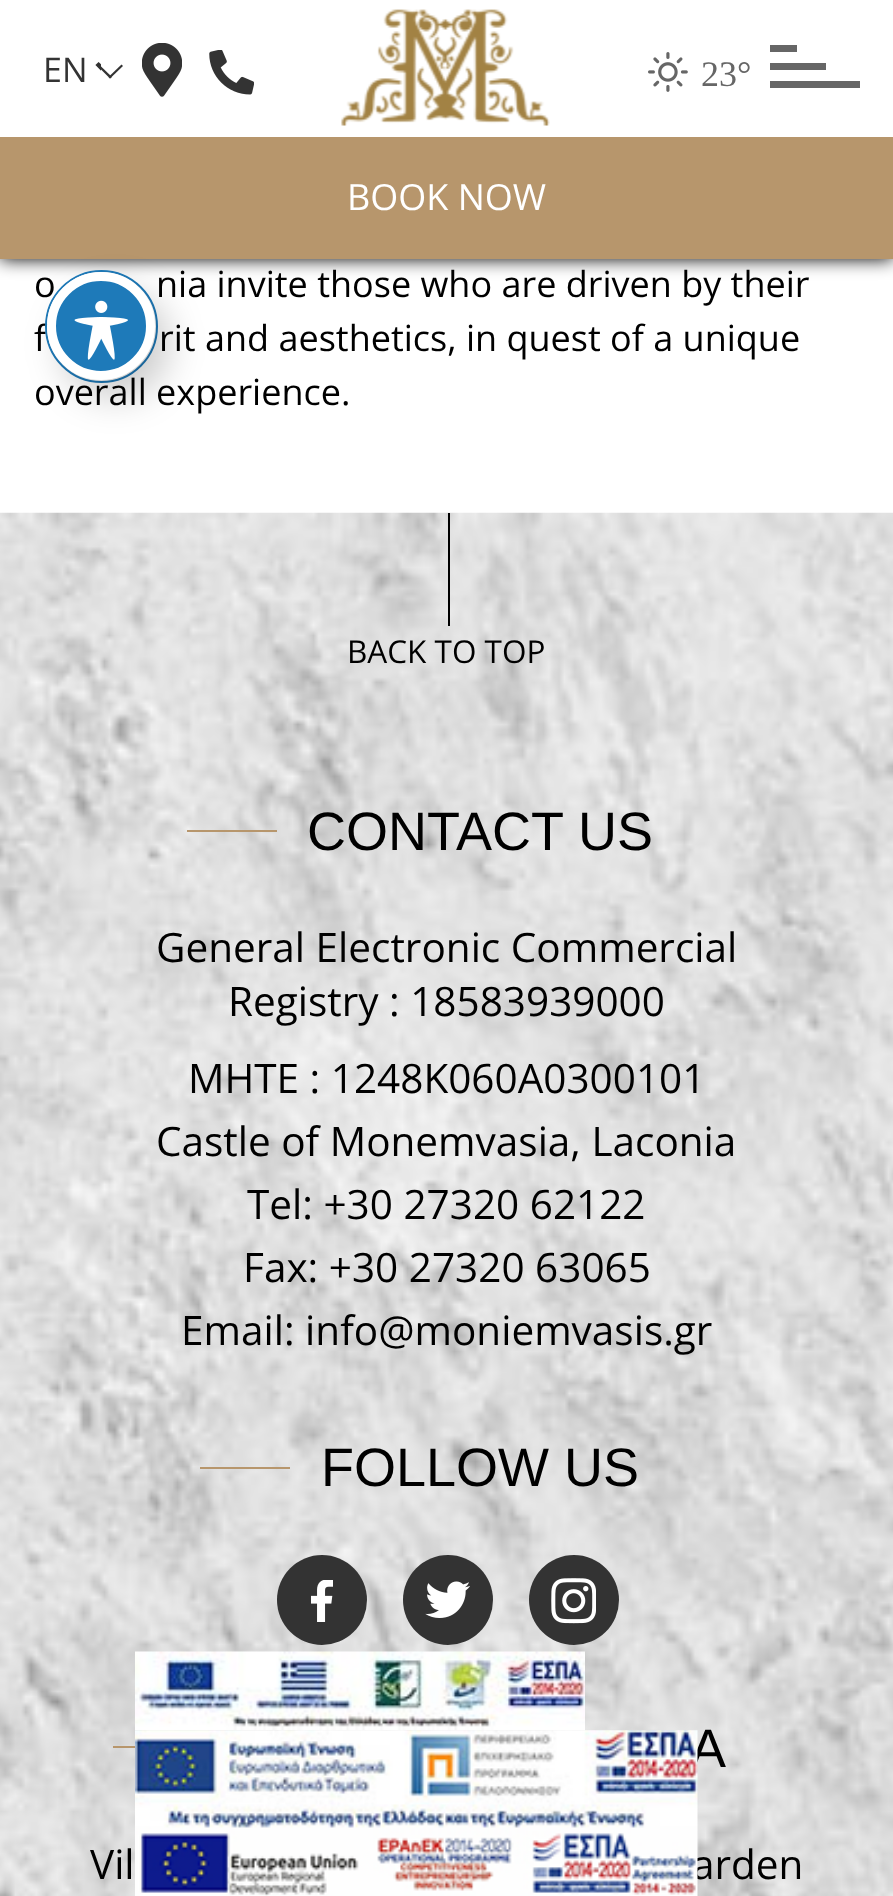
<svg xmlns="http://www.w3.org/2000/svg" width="893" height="1896">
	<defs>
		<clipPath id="clip1"><rect x="34" y="41" width="67" height="54" /></clipPath>
	</defs>
	<rect width="100%" height="100%" fill="#FFFFFF" />
	<rect x="0" y="0" width="893" height="259" fill="#000000" filter="blur(9px)" />
	<rect x="0" y="0" width="893" height="137" fill="#FFFFFF" />
	<g clip-path="url(#clip1)">
		<path d="M97 63.5L106 72.5L115 63.5" fill="none" stroke="#333333" stroke-width="4.5" />
	</g>
	<text x="43" y="82" font-family="Open Sans" font-size="34" fill="#333333">EN</text>
	<path d="M121.5 64.5L123 66L110 78.5L108.5 77Z" fill="#333333" />
	<path d="M99 64.5L112 77L110 78.5L97.5 66Z" fill="#333333" />
	<image x="142" y="43" width="40" height="54" href="assets/img1.png" />
	<image x="209" y="50" width="45" height="45" href="assets/img2.png" />
	<image x="341" y="9" width="209" height="117" href="assets/img3.png" />
	<image x="648" y="52" width="40" height="40" href="assets/img4.png" />
	<text x="701" y="86" font-family="Liberation Serif" font-size="36" fill="#666666">23°</text>
	<rect x="770" y="45" width="27" height="7" fill="#666666" />
	<rect x="770" y="63" width="56" height="7" fill="#666666" />
	<rect x="770" y="81" width="90" height="7" fill="#666666" />
	<rect x="0" y="137" width="893" height="122" fill="#B7966C" />
	<text x="347" y="210" font-family="Open Sans" font-size="36" fill="#FFFFFF">BOOK NOW</text>
	<g font-family="Open Sans" font-size="36" fill="#000000">
		<text x="34" y="297">o</text>
		<text x="156" y="297">nia invite those who are driven by their</text>
		<text x="34" y="351">f</text>
		<text x="159" y="351">rit and aesthetics, in quest of a unique</text>
		<text x="34" y="405">overall experience.</text>
	</g>
	<image x="0" y="512" width="893" height="1384" href="assets/img5.png" />
	<rect x="448" y="513" width="2" height="113" fill="#000000" />
	<text x="347" y="663" font-family="Open Sans" font-size="31.5" fill="#000000">BACK TO TOP</text>
	<rect x="187" y="830" width="90" height="2" fill="#B7966C" />
	<text x="307" y="850" font-family="Liberation Sans" font-size="54" fill="#000000">CONTACT US</text>
	<g font-family="Open Sans" font-size="40.5" fill="#000000">
		<text x="156" y="962">General Electronic Commercial</text>
		<text x="228" y="1016">Registry : 18583939000</text>
		<text x="188" y="1093">ΜΗΤΕ : 1248Κ060Α0300101</text>
		<text x="156" y="1156">Castle of Monemvasia, Laconia</text>
		<text x="247" y="1219">Tel: +30 27320 62122</text>
		<text x="243" y="1282">Fax: +30 27320 63065</text>
		<text x="181" y="1345">Email: info@moniemvasis.gr</text>
	</g>
	<rect x="200" y="1467" width="90" height="2" fill="#B7966C" />
	<text x="321" y="1486" font-family="Liberation Sans" font-size="54" fill="#000000">FOLLOW US</text>
	<circle cx="322" cy="1600" r="45" fill="#333333" />
	<image x="311" y="1580" width="22" height="42" href="assets/img6.png" />
	<circle cx="448" cy="1600" r="45" fill="#333333" />
	<image x="425" y="1581" width="45" height="37" href="assets/img7.png" />
	<circle cx="574" cy="1600" r="45" fill="#333333" />
	<image x="551" y="1578" width="45" height="46" href="assets/img8.png" />
	<rect x="113" y="1746" width="22" height="2" fill="#B7966C" />
	<text x="690" y="1767" font-family="Liberation Sans" font-size="54" fill="#000000">A</text>
	<g font-family="Open Sans" font-size="40.5" fill="#000000">
		<text x="90" y="1879">Vil</text>
		<text x="692" y="1879">arden</text>
	</g>
	<circle cx="101.5" cy="326.5" r="55.5" fill="none" stroke="#1E7AB9" stroke-width="2" />
	<rect x="61" y="290" width="108" height="108" rx="54" fill="#000000" fill-opacity="0.2" filter="blur(18px)" />
	<circle cx="101" cy="326" r="49.5" fill="#1E7AB9" stroke="#FFFFFF" stroke-width="9" />
	<image x="74" y="300" width="54" height="60" href="assets/img9.png" />
	<image x="135" y="1651" width="450" height="80" href="assets/img10.png" />
	<image x="135" y="1730" width="563" height="166" href="assets/img11.png" />
</svg>
